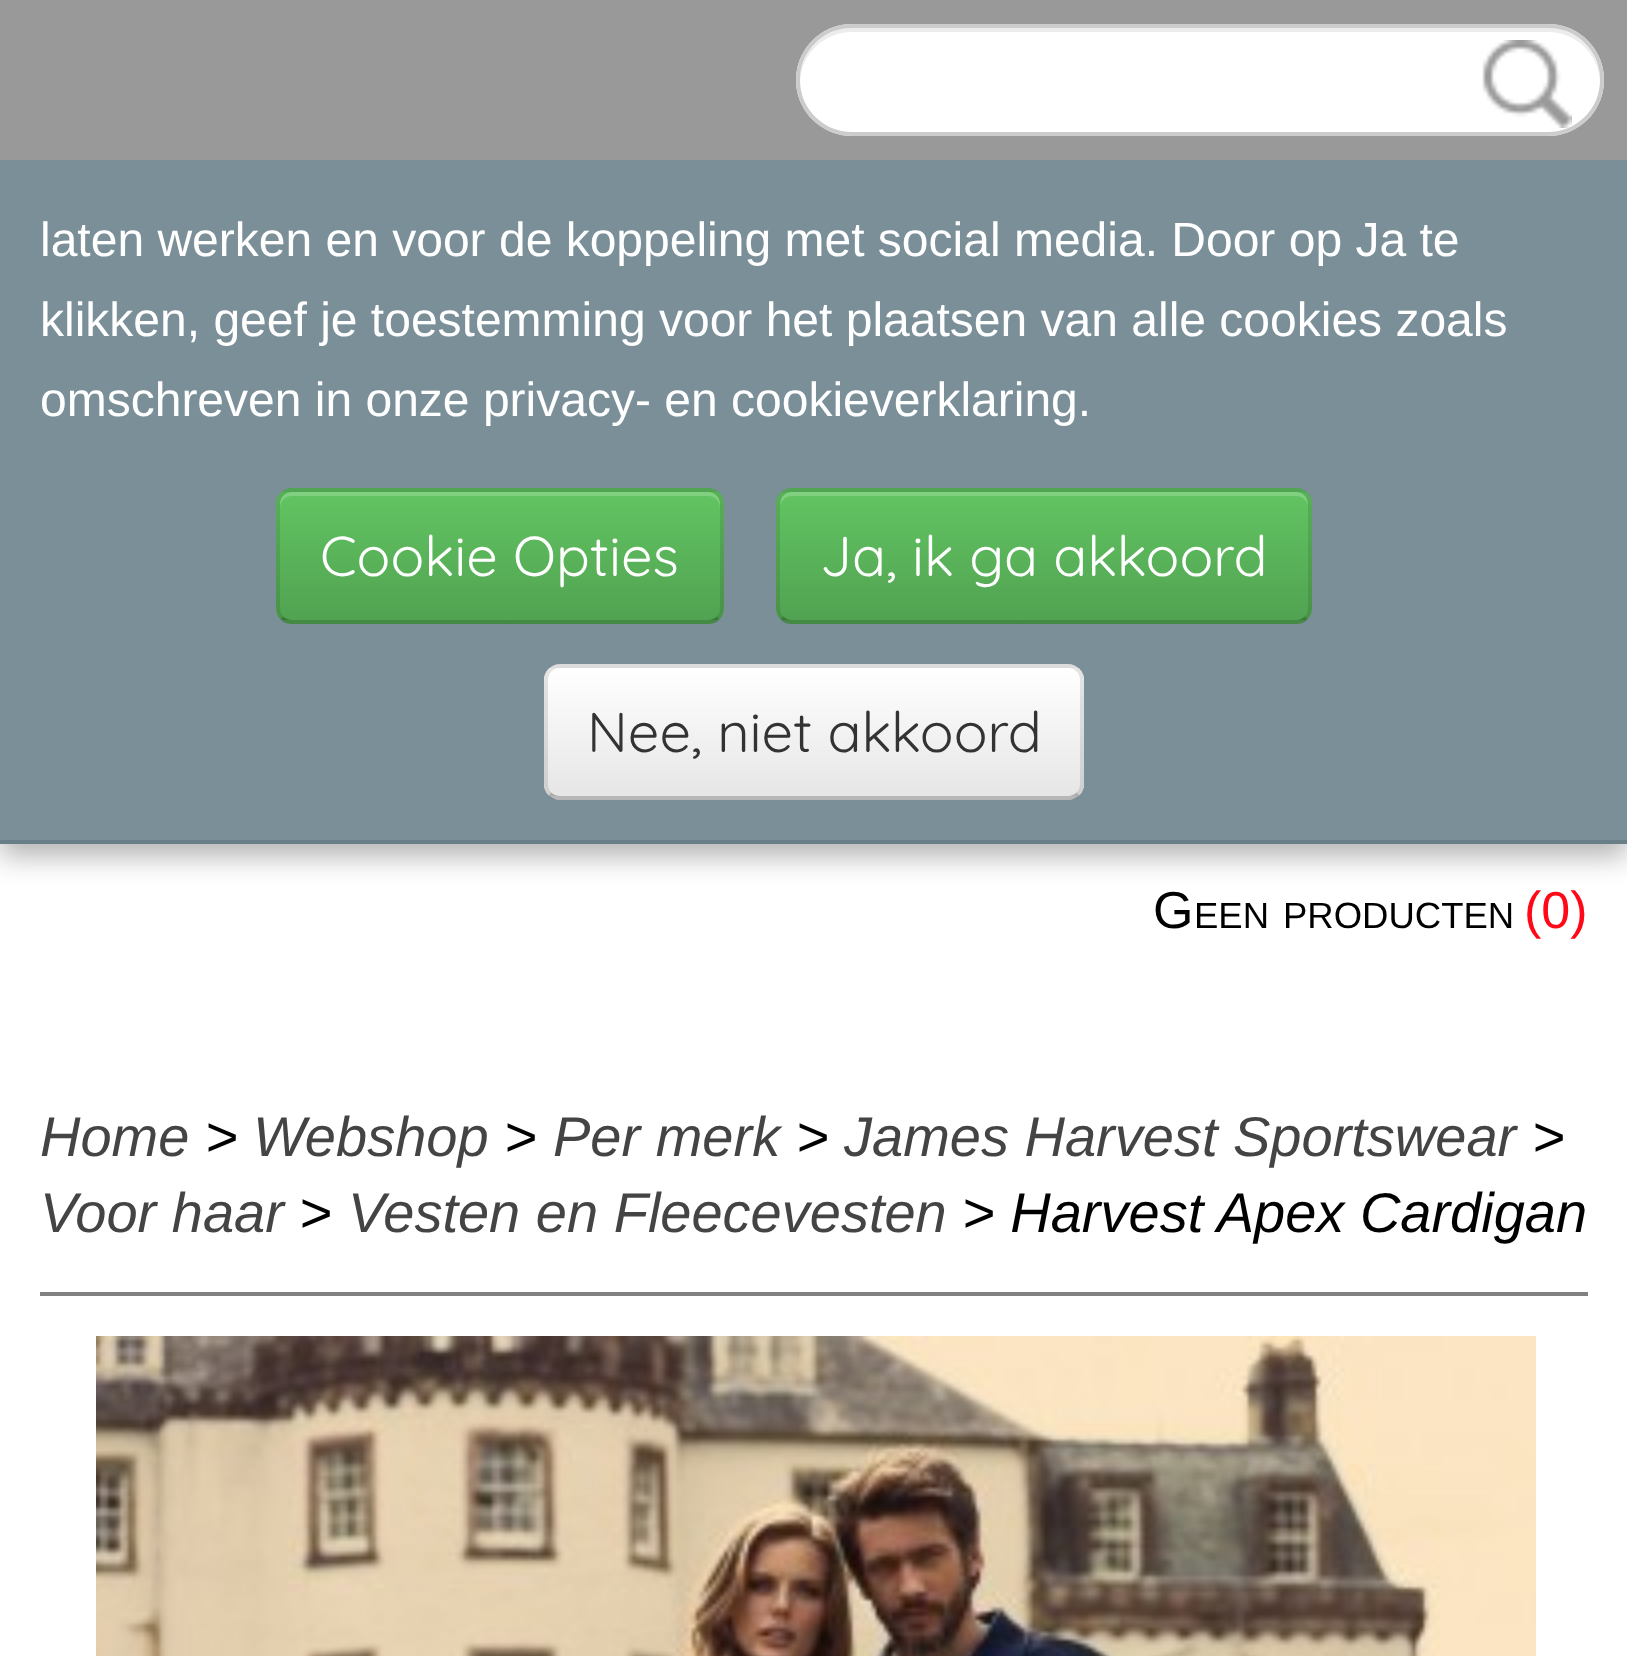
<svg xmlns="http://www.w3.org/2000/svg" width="1627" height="1656">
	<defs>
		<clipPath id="clip1"><rect x="276" y="488" width="448" height="136" rx="16" /></clipPath>
		<linearGradient id="g1" gradientUnits="userSpaceOnUse" x1="500" y1="492" x2="500" y2="620"><stop offset="0" stop-color="#62C462" /><stop offset="1" stop-color="#51A351" /></linearGradient>
		<clipPath id="clip2"><rect x="776" y="488" width="536" height="136" rx="16" /></clipPath>
		<linearGradient id="g2" gradientUnits="userSpaceOnUse" x1="1044" y1="492" x2="1044" y2="620"><stop offset="0" stop-color="#62C462" /><stop offset="1" stop-color="#51A351" /></linearGradient>
		<clipPath id="clip3"><rect x="544" y="664" width="540" height="136" rx="16" /></clipPath>
		<linearGradient id="g3" gradientUnits="userSpaceOnUse" x1="814" y1="668" x2="814" y2="796"><stop offset="0" stop-color="#FFFFFF" /><stop offset="1" stop-color="#E6E6E6" /></linearGradient>
	</defs>
	<rect width="100%" height="100%" fill="#FFFFFF" />
	<rect x="0" y="12" width="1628" height="844" fill="#000000" fill-opacity="0.3" filter="blur(14px)" />
	<rect x="0" y="0" width="1627" height="160" fill="#999999" />
	<rect x="796" y="24" width="808" height="112" rx="56" fill="#FFFFFF" />
	<path d="M852 32H1548C1576 32 1599 54 1600 82C1601 53 1577 28 1548 28H852C823 28 799 53 800 82C801 54 824 32 852 32Z" fill="#ECECEC" />
	<rect x="798" y="26" width="804" height="108" rx="54" fill="none" stroke="#CCCCCC" stroke-width="4" />
	<image x="1482" y="40" width="90" height="88" href="assets/img1.png" />
	<rect x="0" y="160" width="1627" height="680" fill="#7A8F98" />
	<rect x="0" y="840" width="1627" height="4" fill="#697E87" />
	<g font-family="Liberation Sans" font-size="48" fill="#FFFFFF">
		<text x="40" y="256">laten werken en voor de koppeling met social media. Door op Ja te</text>
		<text x="40" y="336">klikken, geef je toestemming voor het plaatsen van alle cookies zoals</text>
		<text x="40" y="416">omschreven in onze privacy- en cookieverklaring.</text>
	</g>
	<rect x="276" y="488" width="448" height="136" rx="16" fill="#5BB75B" />
	<g clip-path="url(#clip1)">
		<rect x="276" y="492" width="448" height="128" fill="url(#g1)" />
	</g>
	<path d="M292 496H708C715 496 720 501 720 508V504C720 497 715 492 708 492H292C285 492 280 497 280 504V508C280 501 285 496 292 496Z" fill="#FFFFFF" fill-opacity="0.2" />
	<path d="M718 618C715.5 620.5 711.5 622 708 622H292C288.5 622 284.5 620.5 282 618" fill="none" stroke="#000000" stroke-opacity="0.25" stroke-width="4" />
	<path d="M282 618C279.5 615.5 278 611.5 278 608V504C278 500.5 279.5 496.5 282 494C284.5 491.5 288.5 490 292 490H708C711.5 490 715.5 491.5 718 494C720.5 496.5 722 500.5 722 504V608C722 611.5 720.5 615.5 718 618" fill="none" stroke="#000000" stroke-opacity="0.1" stroke-width="4" />
	<text x="320" y="576" font-family="Quicksand" font-size="56" fill="#FFFFFF">Cookie Opties</text>
	<rect x="776" y="488" width="536" height="136" rx="16" fill="#5BB75B" />
	<g clip-path="url(#clip2)">
		<rect x="776" y="492" width="536" height="128" fill="url(#g2)" />
	</g>
	<path d="M792 496H1296C1303 496 1308 501 1308 508C1308 501 1307 494 1298 492H790C781 494 780 501 780 508C780 501 785 496 792 496Z" fill="#FFFFFF" fill-opacity="0.2" />
	<path d="M1306 618C1303.5 620.5 1299.5 622 1296 622H792C788.5 622 784.5 620.5 782 618" fill="none" stroke="#000000" stroke-opacity="0.25" stroke-width="4" />
	<path d="M782 618C779.5 615.5 778 611.5 778 608V504C778 500.5 779.5 496.5 782 494C784.5 491.5 788.5 490 792 490H1296C1299.5 490 1303.5 491.5 1306 494C1308.5 496.5 1310 500.5 1310 504V608C1310 611.5 1308.5 615.5 1306 618" fill="none" stroke="#000000" stroke-opacity="0.1" stroke-width="4" />
	<text x="820" y="576" font-family="Quicksand" font-size="56" fill="#FFFFFF">Ja, ik ga akkoord</text>
	<rect x="544" y="664" width="540" height="136" rx="16" fill="#F5F5F5" />
	<g clip-path="url(#clip3)">
		<rect x="544" y="668" width="540" height="128" fill="url(#g3)" />
	</g>
	<path d="M1078 794C1075.5 796.5 1071.5 798 1068 798H560C556.5 798 552.5 796.5 550 794" fill="none" stroke="#000000" stroke-opacity="0.25" stroke-width="4" />
	<path d="M550 794C547.5 791.5 546 787.5 546 784V680C546 676.5 547.5 672.5 550 670C552.5 667.5 556.5 666 560 666H1068C1071.5 666 1075.5 667.5 1078 670C1080.5 672.5 1082 676.5 1082 680V784C1082 787.5 1080.5 791.5 1078 794" fill="none" stroke="#000000" stroke-opacity="0.1" stroke-width="4" />
	<text x="587" y="752" font-family="Quicksand" font-size="56" fill="#333333">Nee, niet akkoord</text>
	<text x="1153" y="928" font-family="Liberation Sans" font-size="52" fill="#000000">G</text>
	<g font-family="Liberation Sans" font-size="36.5" fill="#000000">
		<text x="1194" y="928">EEN</text>
		<text x="1283" y="928">PRODUCTEN</text>
	</g>
	<text x="1524" y="928" font-family="Liberation Sans" font-size="52" fill="#FF0818">(0)</text>
	<rect x="40" y="1292" width="1548" height="4" fill="#828181" />
	<text x="40" y="1156" font-family="Liberation Sans" font-size="56" font-style="italic" fill="#444444">Home</text>
	<text x="205" y="1156" font-family="Liberation Sans" font-size="56" font-style="italic" fill="#000000">&gt;</text>
	<text x="253" y="1156" font-family="Liberation Sans" font-size="56" font-style="italic" fill="#444444">Webshop</text>
	<text x="504" y="1156" font-family="Liberation Sans" font-size="56" font-style="italic" fill="#000000">&gt;</text>
	<text x="553" y="1156" font-family="Liberation Sans" font-size="56" font-style="italic" fill="#444444">Per merk</text>
	<text x="796" y="1156" font-family="Liberation Sans" font-size="56" font-style="italic" fill="#000000">&gt;</text>
	<text x="844" y="1156" font-family="Liberation Sans" font-size="56" font-style="italic" fill="#444444">James Harvest Sportswear</text>
	<text x="1532" y="1156" font-family="Liberation Sans" font-size="56" font-style="italic" fill="#000000">&gt;</text>
	<text x="40" y="1232" font-family="Liberation Sans" font-size="56" font-style="italic" fill="#444444">Voor haar</text>
	<text x="299" y="1232" font-family="Liberation Sans" font-size="56" font-style="italic" fill="#000000">&gt;</text>
	<text x="348" y="1232" font-family="Liberation Sans" font-size="56" font-style="italic" fill="#444444">Vesten en Fleecevesten</text>
	<text x="962" y="1232" font-family="Liberation Sans" font-size="56" font-style="italic" fill="#000000">&gt; Harvest Apex Cardigan</text>
	<image x="96" y="1336" width="1440" height="320" href="assets/img2.png" />
</svg>
